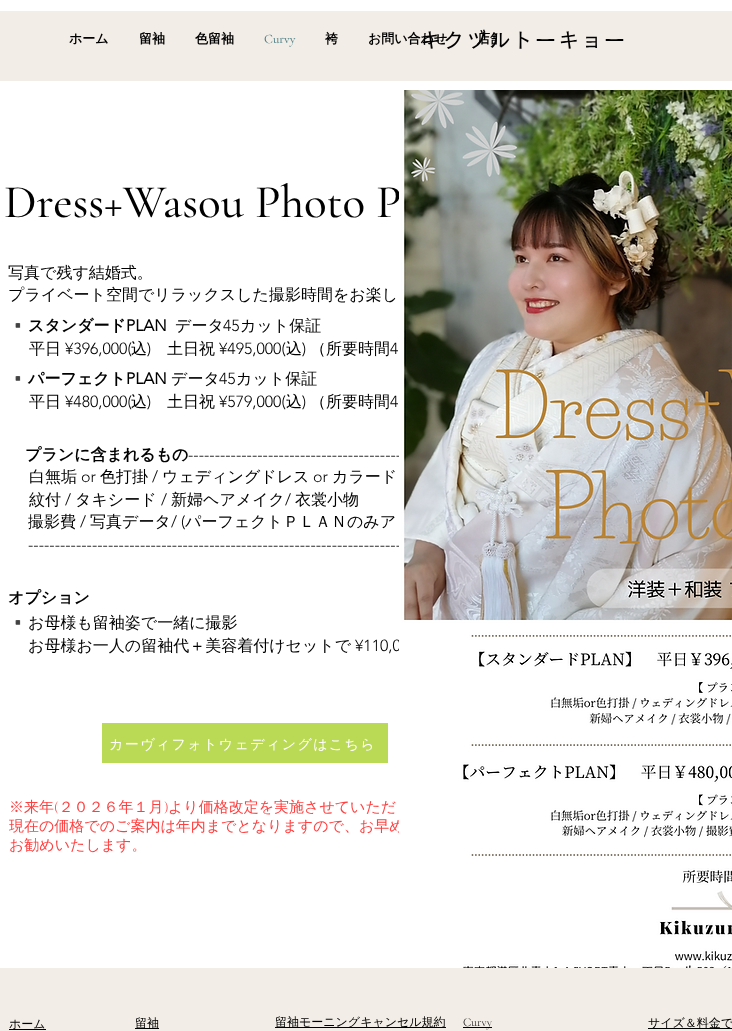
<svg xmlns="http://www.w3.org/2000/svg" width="732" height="1031">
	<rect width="100%" height="100%" fill="#FFFFFF" />
	<rect x="0" y="11" width="497" height="70" fill="#F2EDE6" />
	<g font-family="WenQuanYi Zen Hei" font-size="13" font-weight="700" fill="#000000">
		<text x="69" y="43">ホーム</text>
		<text x="139" y="43">留袖</text>
		<text x="195" y="43">色留袖</text>
	</g>
	<text x="264" y="43" font-family="Cormorant Garamond" font-size="13" font-weight="500" fill="#4A7D85">Curvy</text>
	<g font-family="WenQuanYi Zen Hei" font-size="13" font-weight="700" fill="#000000">
		<text x="325" y="43">袴</text>
		<text x="368" y="43">お問い合わせ</text>
		<text x="477" y="43">店舗</text>
	</g>
	<rect x="497" y="11" width="235" height="70" fill="#F2EDE6" />
	<text x="420" y="48" font-family="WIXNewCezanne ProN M" font-size="21" font-weight="500" letter-spacing="2" fill="#000000">キクヅルトーキョー</text>
	<text x="4" y="217" font-family="Cormorant Garamond" font-size="47" font-weight="500" fill="#000000">Dress+Wasou Photo P</text>
	<g font-family="WenQuanYi Zen Hei" font-size="16" font-weight="500" fill="#000000">
		<text x="8" y="278">写真で残す結婚式。</text>
		<text x="8" y="300">プライベート空間でリラックスした撮影時間をお楽し</text>
	</g>
	<text x="8" y="331" font-family="Noto Color Emoji" font-size="16" font-weight="700" fill="#000000">▪️</text>
	<text x="28" y="331" font-family="WenQuanYi Zen Hei" font-size="16" font-weight="700" fill="#000000">スタンダード</text>
	<text x="126" y="331" font-family="'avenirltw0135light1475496'" font-size="16" font-weight="700" fill="#000000">PLAN</text>
	<text x="175" y="331" font-family="WenQuanYi Zen Hei" font-size="16" font-weight="500" fill="#000000">データ</text>
	<text x="223" y="331" font-family="'avenirltw0135light1475496'" font-size="16" font-weight="300" fill="#000000">45</text>
	<g font-family="WenQuanYi Zen Hei" font-size="16" font-weight="500" fill="#000000">
		<text x="240" y="331">カット保証</text>
		<text x="29" y="354">平日</text>
	</g>
	<text x="65" y="354" font-family="'avenirltw0135light1475496'" font-size="16" font-weight="300" fill="#000000">¥396,000(</text>
	<text x="131" y="354" font-family="WenQuanYi Zen Hei" font-size="16" font-weight="500" fill="#000000">込</text>
	<text x="147" y="354" font-family="'avenirltw0135light1475496'" font-size="16" font-weight="300" fill="#000000">)</text>
	<text x="167" y="354" font-family="WenQuanYi Zen Hei" font-size="16" font-weight="500" fill="#000000">土日祝</text>
	<text x="219" y="354" font-family="'avenirltw0135light1475496'" font-size="16" font-weight="300" fill="#000000">¥495,000(</text>
	<text x="286" y="354" font-family="WenQuanYi Zen Hei" font-size="16" font-weight="500" fill="#000000">込</text>
	<text x="302" y="354" font-family="'avenirltw0135light1475496'" font-size="16" font-weight="300" fill="#000000">)</text>
	<text x="310" y="354" font-family="WenQuanYi Zen Hei" font-size="16" font-weight="500" fill="#000000">（所要時間</text>
	<text x="390" y="354" font-family="'avenirltw0135light1475496'" font-size="16" font-weight="300" fill="#000000">4</text>
	<text x="8" y="384" font-family="Noto Color Emoji" font-size="16" font-weight="700" fill="#000000">▪️</text>
	<text x="28" y="384" font-family="WenQuanYi Zen Hei" font-size="16" font-weight="700" fill="#000000">パーフェクト</text>
	<text x="126" y="384" font-family="'avenirltw0135light1475496'" font-size="16" font-weight="700" fill="#000000">PLAN</text>
	<text x="171" y="384" font-family="WenQuanYi Zen Hei" font-size="16" font-weight="500" fill="#000000">データ</text>
	<text x="219" y="384" font-family="'avenirltw0135light1475496'" font-size="16" font-weight="300" fill="#000000">45</text>
	<g font-family="WenQuanYi Zen Hei" font-size="16" font-weight="500" fill="#000000">
		<text x="236" y="384">カット保証</text>
		<text x="29" y="407">平日</text>
	</g>
	<text x="65" y="407" font-family="'avenirltw0135light1475496'" font-size="16" font-weight="300" fill="#000000">¥480,000(</text>
	<text x="131" y="407" font-family="WenQuanYi Zen Hei" font-size="16" font-weight="500" fill="#000000">込</text>
	<text x="147" y="407" font-family="'avenirltw0135light1475496'" font-size="16" font-weight="300" fill="#000000">)</text>
	<text x="167" y="407" font-family="WenQuanYi Zen Hei" font-size="16" font-weight="500" fill="#000000">土日祝</text>
	<text x="219" y="407" font-family="'avenirltw0135light1475496'" font-size="16" font-weight="300" fill="#000000">¥579,000(</text>
	<text x="286" y="407" font-family="WenQuanYi Zen Hei" font-size="16" font-weight="500" fill="#000000">込</text>
	<text x="302" y="407" font-family="'avenirltw0135light1475496'" font-size="16" font-weight="300" fill="#000000">)</text>
	<text x="310" y="407" font-family="WenQuanYi Zen Hei" font-size="16" font-weight="500" fill="#000000">（所要時間</text>
	<text x="390" y="407" font-family="'avenirltw0135light1475496'" font-size="16" font-weight="300" fill="#000000">4</text>
	<text x="25" y="460" font-family="WenQuanYi Zen Hei" font-size="16" font-weight="700" fill="#000000">プランに含まれるもの</text>
	<text x="188" y="460" font-family="'avenirltw0135light1475496'" font-size="16" font-weight="300" fill="#000000">----------------------------------------</text>
	<text x="29" y="482" font-family="WenQuanYi Zen Hei" font-size="16" font-weight="500" fill="#000000">白無垢</text>
	<text x="81" y="482" font-family="'avenirltw0135light1475496'" font-size="16" font-weight="300" fill="#000000">or</text>
	<text x="100" y="482" font-family="WenQuanYi Zen Hei" font-size="16" font-weight="500" fill="#000000">色打掛</text>
	<text x="152" y="482" font-family="'avenirltw0135light1475496'" font-size="16" font-weight="300" fill="#000000">/</text>
	<text x="162" y="482" font-family="WenQuanYi Zen Hei" font-size="16" font-weight="500" fill="#000000">ウェディングドレス</text>
	<text x="313" y="482" font-family="'avenirltw0135light1475496'" font-size="16" font-weight="300" fill="#000000">or</text>
	<g font-family="WenQuanYi Zen Hei" font-size="16" font-weight="500" fill="#000000">
		<text x="332" y="482">カラード</text>
		<text x="29" y="505">紋付</text>
	</g>
	<text x="65" y="505" font-family="'avenirltw0135light1475496'" font-size="16" font-weight="300" fill="#000000">/</text>
	<text x="75" y="505" font-family="WenQuanYi Zen Hei" font-size="16" font-weight="500" fill="#000000">タキシード</text>
	<text x="161" y="505" font-family="'avenirltw0135light1475496'" font-size="16" font-weight="300" fill="#000000">/</text>
	<text x="171" y="505" font-family="WenQuanYi Zen Hei" font-size="16" font-weight="500" fill="#000000">新婦ヘアメイク</text>
	<text x="285" y="505" font-family="'avenirltw0135light1475496'" font-size="16" font-weight="300" fill="#000000">/</text>
	<g font-family="WenQuanYi Zen Hei" font-size="16" font-weight="500" fill="#000000">
		<text x="295" y="505">衣裳小物</text>
		<text x="28" y="527">撮影費</text>
	</g>
	<text x="80" y="527" font-family="'avenirltw0135light1475496'" font-size="16" font-weight="300" fill="#000000">/</text>
	<text x="90" y="527" font-family="WenQuanYi Zen Hei" font-size="16" font-weight="500" fill="#000000">写真データ</text>
	<text x="171" y="527" font-family="'avenirltw0135light1475496'" font-size="16" font-weight="300" fill="#000000">/ (</text>
	<text x="185" y="527" font-family="WenQuanYi Zen Hei" font-size="16" font-weight="500" fill="#000000">パーフェクトＰＬＡＮのみア</text>
	<text x="28" y="550" font-family="'avenirltw0135light1475496'" font-size="16" font-weight="300" fill="#000000">----------------------------------------------------------------------</text>
	<text x="8" y="603" font-family="WenQuanYi Zen Hei" font-size="16" font-weight="700" fill="#000000">オプション</text>
	<text x="8" y="628" font-family="Noto Color Emoji" font-size="16" fill="#000000">▪️</text>
	<g font-family="WenQuanYi Zen Hei" font-size="16" font-weight="500" fill="#000000">
		<text x="28" y="628">お母様も留袖姿で一緒に撮影</text>
		<text x="28" y="651">お母様お一人の留袖代＋美容着付けセットで</text>
	</g>
	<text x="355" y="651" font-family="'avenirltw0135light1475496'" font-size="16" font-weight="300" fill="#000000">¥110,0</text>
	<rect x="102" y="723" width="286" height="40" fill="#BADA55" />
	<text x="109" y="749" font-family="WenQuanYi Zen Hei" font-size="14" font-weight="500" letter-spacing="1.4" fill="#FFFFFF">カーヴィフォトウェディングはこちら</text>
	<text x="9" y="812" font-family="WenQuanYi Zen Hei" font-size="15" font-weight="500" fill="#FF4040">※来年 ２０２６年１月 より価格改定を実施させていただ</text>
	<g font-family="Cormorant Garamond" font-size="15" font-weight="300" fill="#FF4040">
		<text x="54" y="812">(</text>
		<text x="164" y="812">)</text>
	</g>
	<g font-family="WenQuanYi Zen Hei" font-size="15" font-weight="500" fill="#FF4040">
		<text x="9" y="831">現在の価格でのご案内は年内までとなりますので、お早め</text>
		<text x="9" y="850">お勧めいたします。</text>
	</g>
	<image x="399" y="90" width="333" height="878" href="assets/img1.png" />
	<rect x="0" y="968" width="732" height="63" fill="#F2EDE6" />
	<rect x="9" y="1029" width="37" height="1" fill="#000000" />
	<text x="9" y="1028" font-family="WenQuanYi Zen Hei" font-size="12" font-weight="500" fill="#000000">ホーム</text>
	<rect x="135" y="1028" width="24" height="1" fill="#000000" />
	<text x="135" y="1027" font-family="WenQuanYi Zen Hei" font-size="12" font-weight="500" fill="#000000">留袖</text>
	<rect x="275" y="1027" width="171" height="1" fill="#000000" />
	<text x="275" y="1026" font-family="WenQuanYi Zen Hei" font-size="12" font-weight="500" fill="#000000">留袖モーニングキャンセル規約</text>
	<rect x="463" y="1027" width="29" height="1" fill="#000000" />
	<text x="463" y="1026" font-family="Cormorant Garamond" font-size="12" font-weight="300" fill="#000000">Curvy</text>
	<rect x="648" y="1028" width="84" height="1" fill="#000000" />
	<text x="648" y="1027" font-family="WenQuanYi Zen Hei" font-size="12" font-weight="500" fill="#000000">サイズ＆料金で</text>
</svg>
